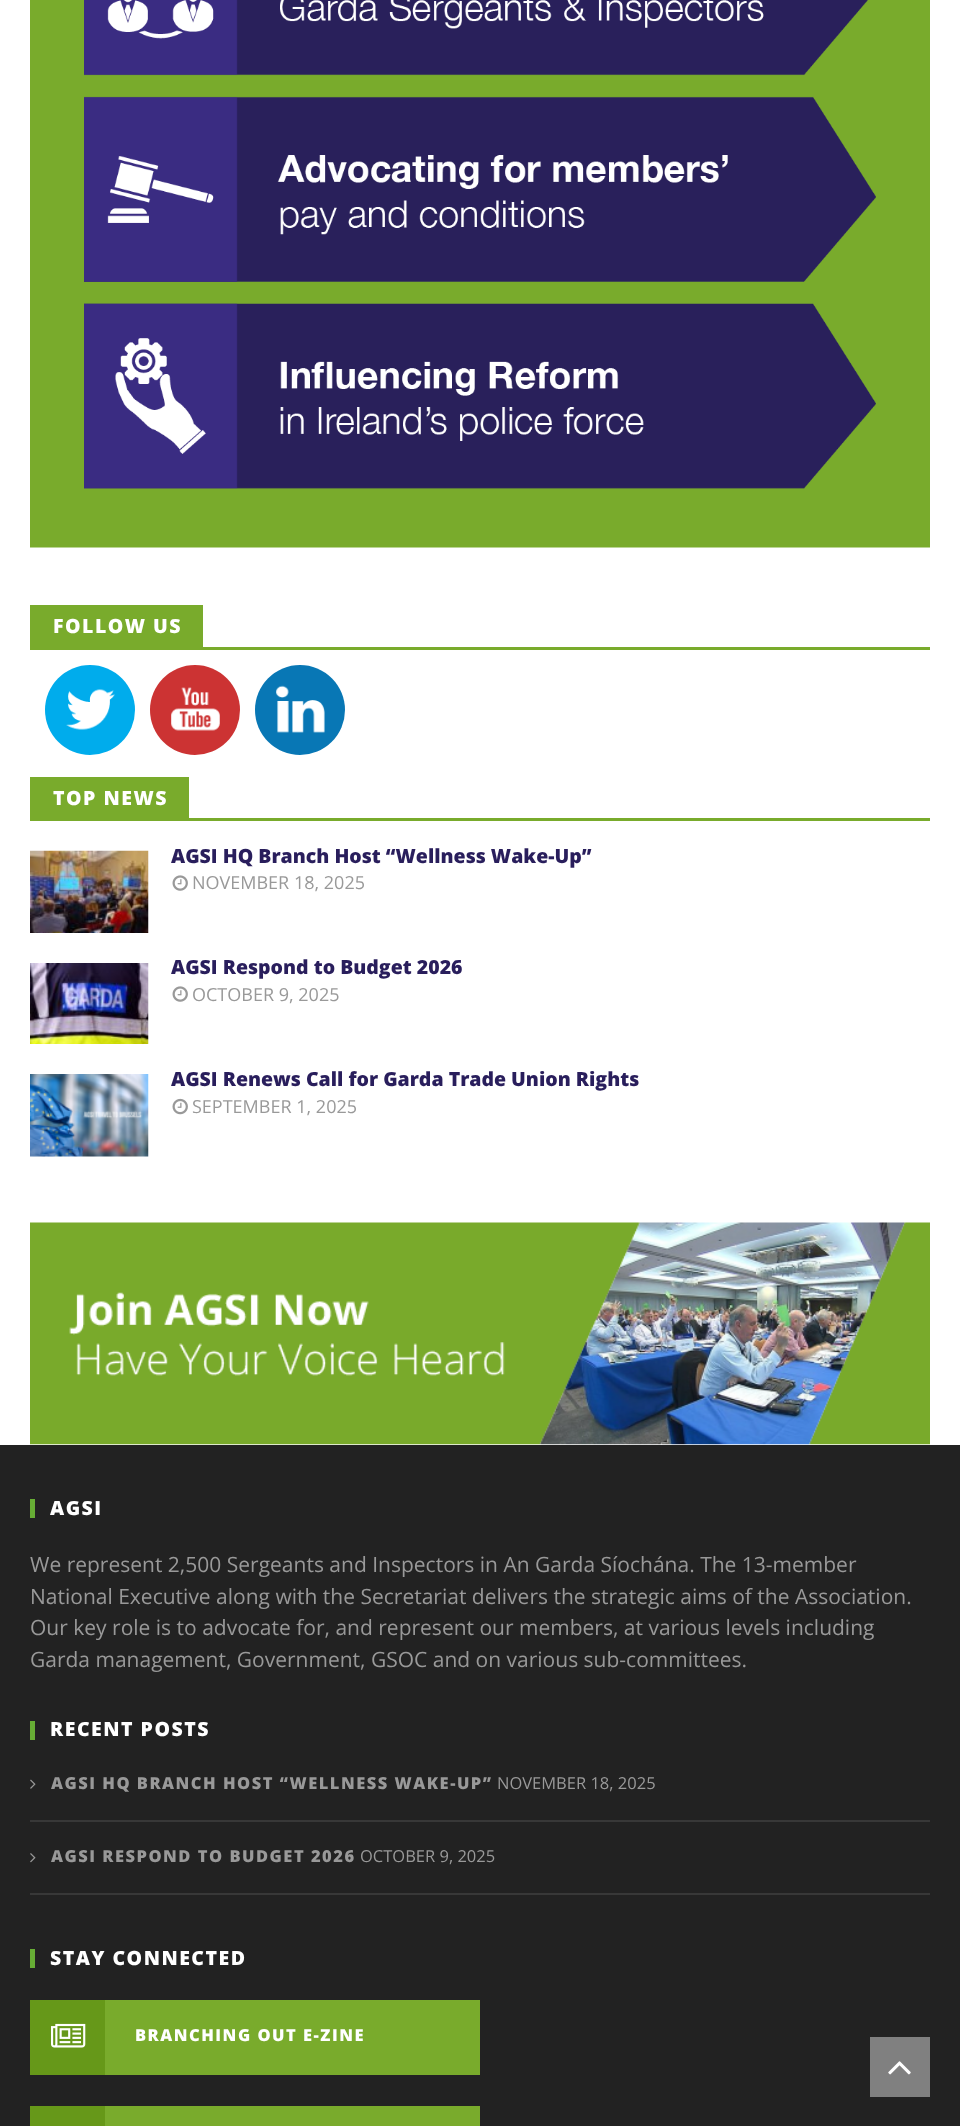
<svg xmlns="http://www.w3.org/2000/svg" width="960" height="2126">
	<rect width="100%" height="100%" fill="#FFFFFF" />
	<image x="30" y="0" width="900" height="548" href="assets/img1.png" />
	<rect x="30" y="605" width="173" height="42" fill="#79AB2C" />
	<text x="53" y="633" font-family="Open Sans" font-size="19.5" font-weight="800" letter-spacing="1.5" fill="#FFFFFF">FOLLOW US</text>
	<rect x="30" y="647" width="900" height="3" fill="#79AB2C" />
	<circle cx="90" cy="710" r="45" fill="#00ACEC" />
	<image x="66" y="689" width="49" height="41" href="assets/img2.png" />
	<circle cx="195" cy="710" r="45" fill="#CC3333" />
	<image x="171" y="687" width="49" height="44" href="assets/img3.png" />
	<circle cx="300" cy="710" r="45" fill="#0877B5" />
	<image x="276" y="685" width="49" height="48" href="assets/img4.png" />
	<rect x="30" y="777" width="159" height="41" fill="#79AB2C" />
	<text x="53" y="805" font-family="Open Sans" font-size="19.5" font-weight="800" letter-spacing="1.5" fill="#FFFFFF">TOP NEWS</text>
	<rect x="30" y="818" width="900" height="3" fill="#79AB2C" />
	<image x="30" y="850" width="119" height="83" href="assets/img5.png" />
	<text x="171" y="863" font-family="Open Sans" font-size="19.5" font-weight="800" fill="#291E5C">AGSI HQ Branch Host “Wellness Wake-Up”</text>
	<image x="172" y="875" width="16" height="16" href="assets/img6.png" />
	<text x="192" y="889" font-family="Open Sans" font-size="18" fill="#999999">NOVEMBER 18, 2025</text>
	<image x="30" y="963" width="119" height="81" href="assets/img7.png" />
	<text x="171" y="974" font-family="Open Sans" font-size="19.5" font-weight="800" fill="#291E5C">AGSI Respond to Budget 2026</text>
	<image x="172" y="986" width="16" height="16" href="assets/img6.png" />
	<text x="192" y="1001" font-family="Open Sans" font-size="18" fill="#999999">OCTOBER 9, 2025</text>
	<image x="30" y="1074" width="119" height="83" href="assets/img8.png" />
	<text x="171" y="1086" font-family="Open Sans" font-size="19.5" font-weight="800" fill="#291E5C">AGSI Renews Call for Garda Trade Union Rights</text>
	<image x="172" y="1098" width="16" height="17" href="assets/img9.png" />
	<text x="192" y="1113" font-family="Open Sans" font-size="18" fill="#999999">SEPTEMBER 1, 2025</text>
	<image x="30" y="1222" width="900" height="223" href="assets/img10.png" />
	<rect x="0" y="1445" width="960" height="681" fill="#222222" />
	<rect x="30" y="1499" width="5" height="19" fill="#67AD35" />
	<text x="50" y="1515" font-family="Open Sans" font-size="19.5" font-weight="800" letter-spacing="1.5" fill="#FFFFFF">AGSI</text>
	<g font-family="Open Sans" font-size="21" fill="#999999">
		<text x="30" y="1572">We represent 2,500 Sergeants and Inspectors in An Garda Síochána. The 13-member</text>
		<text x="30" y="1604">National Executive along with the Secretariat delivers the strategic aims of the Association.</text>
		<text x="30" y="1635">Our key role is to advocate for, and represent our members, at various levels including</text>
		<text x="30" y="1667">Garda management, Government, GSOC and on various sub-committees.</text>
	</g>
	<rect x="30" y="1721" width="5" height="19" fill="#67AD35" />
	<text x="50" y="1736" font-family="Open Sans" font-size="19.5" font-weight="800" letter-spacing="1.5" fill="#FFFFFF">RECENT POSTS</text>
	<rect x="30" y="1820" width="900" height="2" fill="#383838" />
	<image x="30" y="1779" width="6" height="10" href="assets/img11.png" />
	<text x="51" y="1789" font-family="Open Sans" font-size="16.5" font-weight="800" letter-spacing="1.5" fill="#999999">AGSI HQ BRANCH HOST “WELLNESS WAKE-UP”</text>
	<text x="497" y="1789" font-family="Open Sans" font-size="16.5" fill="#999999">NOVEMBER 18, 2025</text>
	<rect x="30" y="1893" width="900" height="2" fill="#383838" />
	<image x="30" y="1853" width="6" height="10" href="assets/img12.png" />
	<text x="51" y="1862" font-family="Open Sans" font-size="16.5" font-weight="800" letter-spacing="1.5" fill="#999999">AGSI RESPOND TO BUDGET 2026</text>
	<text x="360" y="1862" font-family="Open Sans" font-size="16.5" fill="#999999">OCTOBER 9, 2025</text>
	<rect x="30" y="1949" width="5" height="19" fill="#67AD35" />
	<text x="50" y="1965" font-family="Open Sans" font-size="19.5" font-weight="800" letter-spacing="1.5" fill="#FFFFFF">STAY CONNECTED</text>
	<rect x="30" y="2000" width="75" height="75" fill="#669819" />
	<image x="51" y="2023" width="35" height="25" href="assets/img13.png" />
	<rect x="105" y="2000" width="375" height="75" fill="#79AB2C" />
	<text x="135" y="2041" font-family="Open Sans" font-size="16.5" font-weight="800" letter-spacing="1.5" fill="#FFFFFF">BRANCHING OUT E-ZINE</text>
	<rect x="30" y="2106" width="75" height="20" fill="#669819" />
	<rect x="105" y="2106" width="375" height="20" fill="#79AB2C" />
	<rect x="870" y="2037" width="60" height="60" fill="#808080" />
	<image x="888" y="2061" width="23" height="14" href="assets/img14.png" />
</svg>
